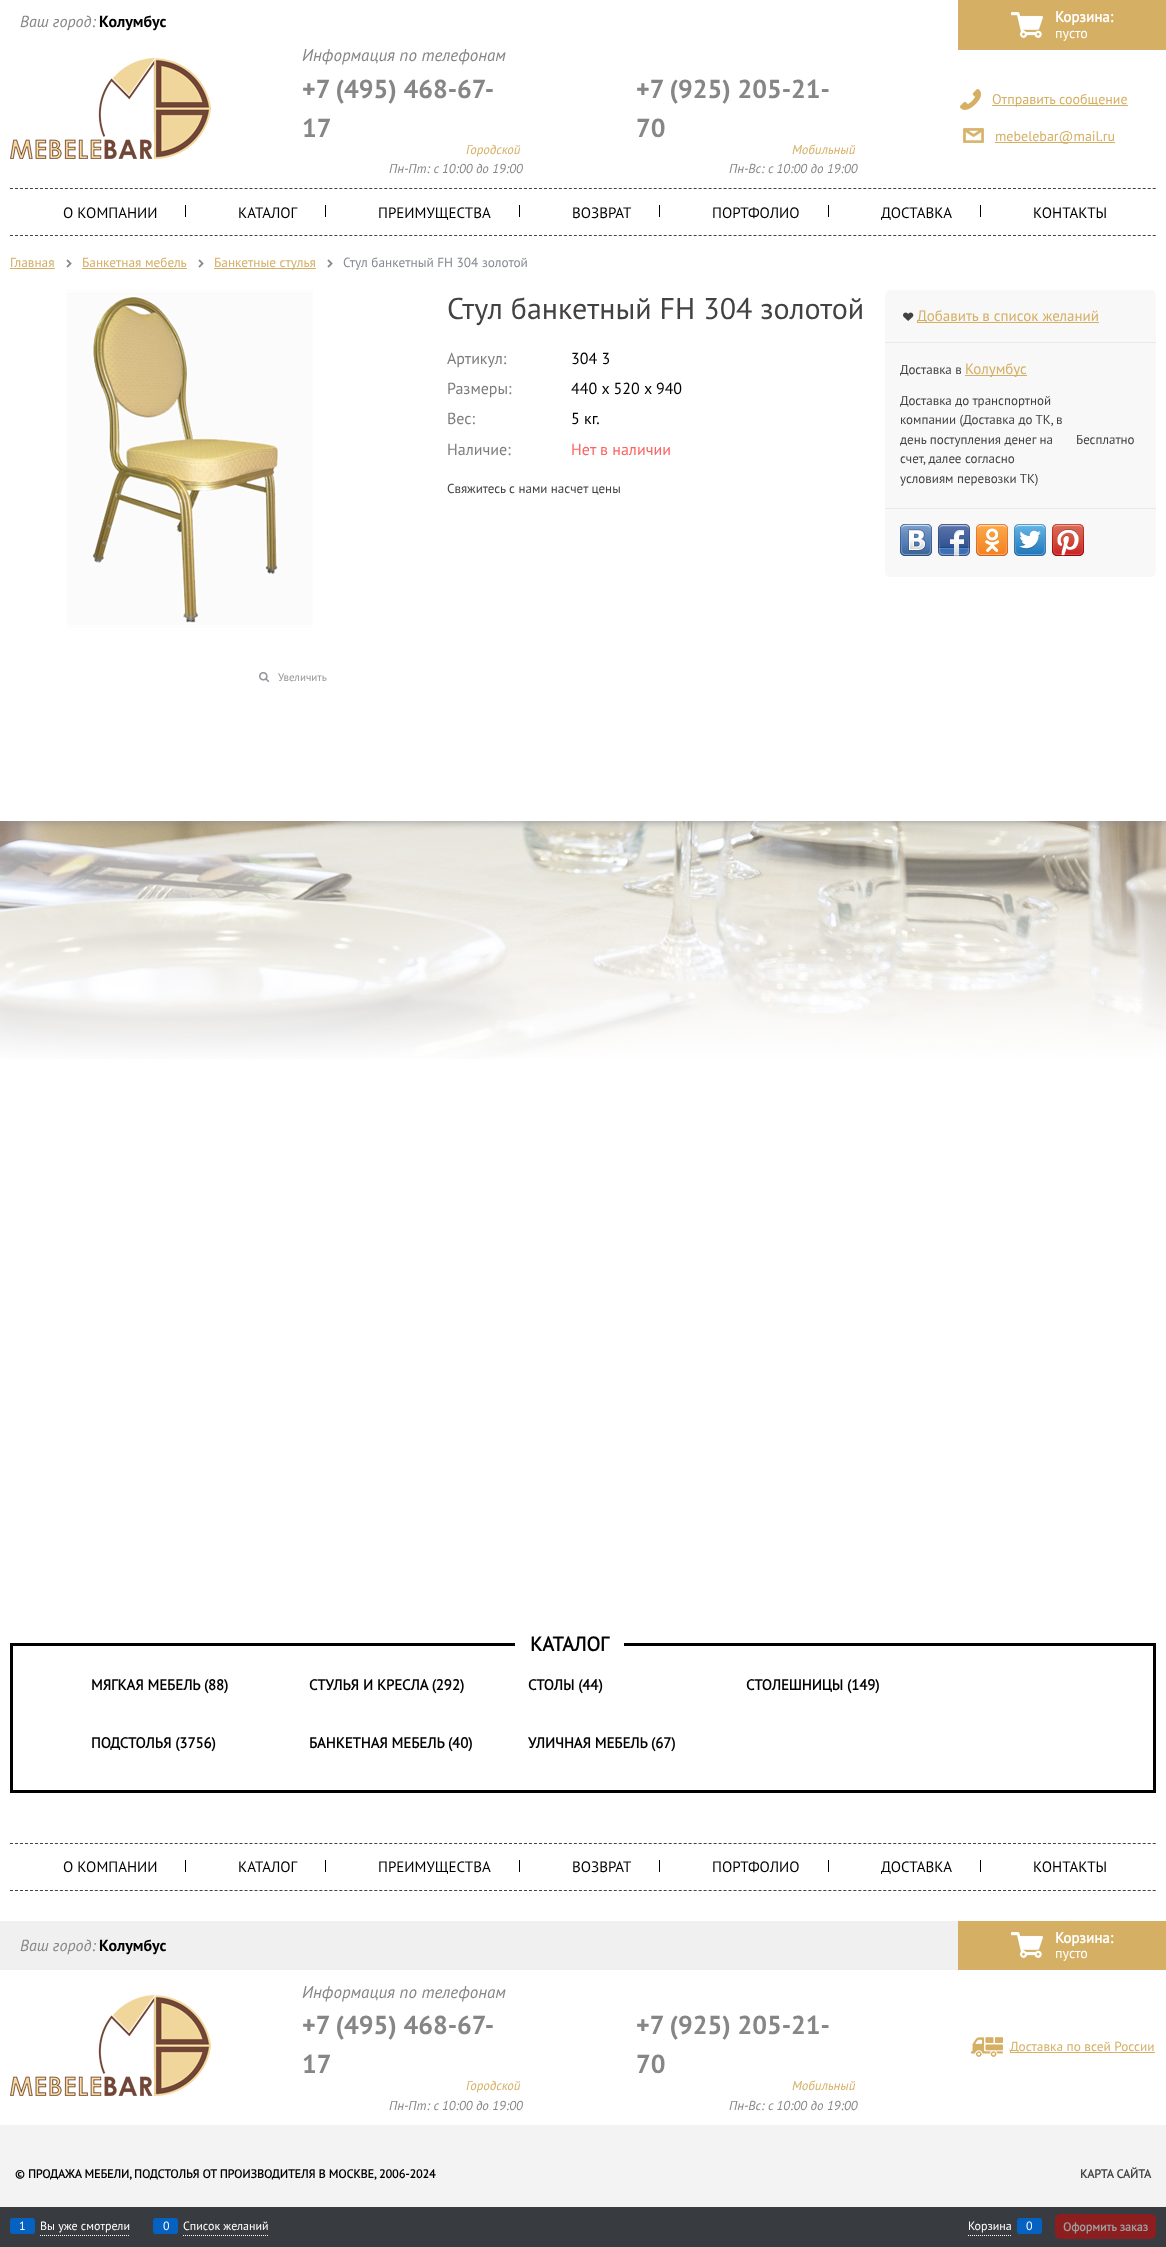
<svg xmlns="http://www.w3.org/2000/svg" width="1166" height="2247">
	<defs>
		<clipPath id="clip1"><rect x="900" y="386" width="241" height="107" /></clipPath>
	</defs>
	<rect width="100%" height="100%" fill="#FFFFFF" />
	<image x="0" y="821" width="1166" height="238" href="assets/img15.png" />
	<rect x="0" y="0" width="1166" height="821" fill="#8C8C8C" filter="blur(5px)" />
	<rect x="0" y="0" width="1166" height="821" fill="#FFFFFF" />
	<text x="20" y="27" font-family="PT Sans" font-size="16" font-style="italic" fill="#868686">Ваш город:</text>
	<text x="99" y="27" font-family="'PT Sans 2'" font-size="16" font-weight="700" fill="#000000">Колумбус</text>
	<rect x="958" y="0" width="208" height="50" fill="#D5AF64" />
	<image x="1011" y="12" width="32" height="26" href="assets/img1.png" />
	<text x="1055" y="22" font-family="PT Sans" font-size="15" font-weight="700" fill="#FFFFFF">Корзина:</text>
	<text x="1055" y="38" font-family="PT Sans" font-size="14" fill="#FFFFFF">пусто</text>
	<image x="10" y="57" width="201" height="102" href="assets/img2.png" />
	<text x="302" y="61" font-family="PT Sans" font-size="17" font-style="italic" fill="#868686">Информация по телефонам</text>
	<g font-family="'PT Sans 2'" font-size="26" font-weight="700" fill="#868686">
		<text x="302" y="98">+7 (495) 468-67-</text>
		<text x="302" y="137">17</text>
	</g>
	<text x="466" y="154" font-family="PT Sans" font-size="13" font-style="italic" fill="#D5AF64">Городской</text>
	<text x="389" y="173" font-family="PT Sans" font-size="13" font-style="italic" fill="#868686">Пн-Пт: с 10:00 до 19:00</text>
	<g font-family="'PT Sans 2'" font-size="26" font-weight="700" fill="#868686">
		<text x="636" y="98">+7 (925) 205-21-</text>
		<text x="636" y="137">70</text>
	</g>
	<text x="792" y="154" font-family="PT Sans" font-size="13" font-style="italic" fill="#D5AF64">Мобильный</text>
	<text x="729" y="173" font-family="PT Sans" font-size="13" font-style="italic" fill="#868686">Пн-Вс: с 10:00 до 19:00</text>
	<image x="960" y="89" width="21" height="21" href="assets/img3.png" />
	<rect x="992" y="105" width="136" height="1" fill="#D5AF64" />
	<text x="992" y="104" font-family="PT Sans" font-size="14" fill="#D5AF64">Отправить сообщение</text>
	<image x="963" y="128" width="21" height="15" href="assets/img4.png" />
	<rect x="995" y="142" width="120" height="1" fill="#D5AF64" />
	<text x="995" y="141" font-family="PT Sans" font-size="14" fill="#D5AF64">mebelebar@mail.ru</text>
	<path d="M10 188.5H1156" fill="none" stroke="#434142" stroke-dasharray="3 1.99" />
	<path d="M10 235.5H1156" fill="none" stroke="#434142" stroke-dasharray="3 1.99" />
	<text x="63" y="218" font-family="PT Sans" font-size="15" fill="#000000">О КОМПАНИИ</text>
	<rect x="185" y="205" width="1" height="12" fill="#000000" />
	<text x="238" y="218" font-family="PT Sans" font-size="15" fill="#000000">КАТАЛОГ</text>
	<rect x="325" y="205" width="1" height="12" fill="#000000" />
	<text x="378" y="218" font-family="PT Sans" font-size="15" fill="#000000">ПРЕИМУЩЕСТВА</text>
	<rect x="519" y="205" width="1" height="12" fill="#000000" />
	<text x="572" y="218" font-family="PT Sans" font-size="15" fill="#000000">ВОЗВРАТ</text>
	<rect x="659" y="205" width="1" height="12" fill="#000000" />
	<text x="712" y="218" font-family="PT Sans" font-size="15" fill="#000000">ПОРТФОЛИО</text>
	<rect x="828" y="205" width="1" height="12" fill="#000000" />
	<text x="881" y="218" font-family="PT Sans" font-size="15" fill="#000000">ДОСТАВКА</text>
	<rect x="980" y="205" width="1" height="12" fill="#000000" />
	<text x="1033" y="218" font-family="PT Sans" font-size="15" fill="#000000">КОНТАКТЫ</text>
	<text x="10" y="267" font-family="PT Sans" font-size="13.3" fill="#D5AF64">Главная</text>
	<rect x="10" y="268" width="45" height="1" fill="#D5AF64" />
	<image x="66" y="259" width="6" height="9" href="assets/img5.png" />
	<text x="82" y="267" font-family="PT Sans" font-size="13.3" fill="#D5AF64">Банкетная мебель</text>
	<rect x="82" y="268" width="105" height="1" fill="#D5AF64" />
	<image x="198" y="259" width="6" height="9" href="assets/img5.png" />
	<rect x="214" y="268" width="102" height="1" fill="#D5AF64" />
	<text x="214" y="267" font-family="PT Sans" font-size="13.3" fill="#D5AF64">Банкетные стулья</text>
	<image x="327" y="259" width="6" height="9" href="assets/img5.png" />
	<text x="343" y="267" font-family="PT Sans" font-size="13.3" fill="#848992">Стул банкетный FH 304 золотой</text>
	<text x="447" y="319" font-family="PT Sans" font-size="30" fill="#434142">Стул банкетный FH 304 золотой</text>
	<text x="447" y="364" font-family="PT Sans" font-size="16" fill="#7D7D7D">Артикул:</text>
	<text x="571" y="364" font-family="PT Sans" font-size="16" fill="#000000">304 3</text>
	<text x="447" y="394" font-family="PT Sans" font-size="16" fill="#7D7D7D">Размеры:</text>
	<text x="571" y="394" font-family="PT Sans" font-size="16" fill="#000000">440 x 520 x 940</text>
	<text x="447" y="424" font-family="PT Sans" font-size="16" fill="#7D7D7D">Вес:</text>
	<text x="571" y="424" font-family="PT Sans" font-size="16" fill="#000000">5 кг.</text>
	<text x="447" y="455" font-family="PT Sans" font-size="16" fill="#7D7D7D">Наличие:</text>
	<text x="571" y="455" font-family="PT Sans" font-size="16" fill="#FB6363">Нет в наличии</text>
	<text x="447" y="493" font-family="PT Sans" font-size="13" fill="#434142">Свяжитесь с нами насчет цены</text>
	<image x="67" y="290" width="246" height="337" href="assets/img6.png" />
	<image x="259" y="671" width="11" height="12" href="assets/img7.png" />
	<text x="278" y="681" font-family="PT Sans" font-size="11" fill="#94969B">Увеличить</text>
	<rect x="885" y="290" width="271" height="287" rx="5" fill="#F8F8F8" />
	<rect x="885" y="342" width="271" height="1" fill="#E9E9E9" />
	<image x="903" y="312" width="11" height="9" href="assets/img8.png" />
	<rect x="917" y="322" width="182" height="1" fill="#D5AF64" />
	<text x="917" y="321" font-family="PT Sans" font-size="15" fill="#D5AF64">Добавить в список желаний</text>
	<rect x="885" y="508" width="271" height="1" fill="#E9E9E9" />
	<text x="900" y="374" font-family="PT Sans" font-size="13" fill="#434142">Доставка в</text>
	<rect x="965" y="375" width="62" height="1" fill="#D5AF64" />
	<text x="965" y="374" font-family="PT Sans" font-size="15" fill="#D5AF64">Колумбус</text>
	<g clip-path="url(#clip1)">
		<text x="900" y="405" font-family="PT Sans" font-size="13" fill="#434142">Доставка до транспортной</text>
	</g>
	<text x="900" y="424" font-family="PT Sans" font-size="13" fill="#434142">компании (Доставка до ТК, в</text>
	<g clip-path="url(#clip1)">
		<text x="900" y="444" font-family="PT Sans" font-size="13" fill="#434142">день поступления денег на</text>
	</g>
	<g font-family="PT Sans" font-size="13" fill="#434142">
		<text x="900" y="463">счет, далее согласно</text>
		<text x="900" y="483">условиям перевозки ТК)</text>
		<text x="1076" y="444">Бесплатно</text>
	</g>
	<image x="900" y="524" width="32" height="32" href="assets/img9.png" />
	<image x="938" y="524" width="32" height="32" href="assets/img10.png" />
	<image x="976" y="524" width="32" height="32" href="assets/img11.png" />
	<image x="1014" y="524" width="32" height="32" href="assets/img12.png" />
	<image x="1052" y="524" width="32" height="32" href="assets/img13.png" />
	<rect x="11.5" y="1644.5" width="1143" height="147" fill="none" stroke="#000000" stroke-width="3" />
	<rect x="515" y="1643" width="109" height="3" fill="#FFFFFF" />
	<text x="530" y="1651" font-family="PT Sans" font-size="20" font-weight="700" fill="#000000">КАТАЛОГ</text>
	<g font-family="PT Sans" font-size="14.75" font-weight="700" fill="#000000">
		<text x="91" y="1690">МЯГКАЯ МЕБЕЛЬ (88)</text>
		<text x="309" y="1690">СТУЛЬЯ И КРЕСЛА (292)</text>
		<text x="528" y="1690">СТОЛЫ (44)</text>
		<text x="746" y="1690">СТОЛЕШНИЦЫ (149)</text>
		<text x="91" y="1748">ПОДСТОЛЬЯ (3756)</text>
		<text x="309" y="1748">БАНКЕТНАЯ МЕБЕЛЬ (40)</text>
		<text x="528" y="1748">УЛИЧНАЯ МЕБЕЛЬ (67)</text>
	</g>
	<path d="M10 1843.5H1156" fill="none" stroke="#434142" stroke-dasharray="3 1.99" />
	<path d="M10 1890.5H1156" fill="none" stroke="#434142" stroke-dasharray="3 1.99" />
	<text x="63" y="1872" font-family="PT Sans" font-size="15" fill="#000000">О КОМПАНИИ</text>
	<rect x="185" y="1860" width="1" height="12" fill="#000000" />
	<text x="238" y="1872" font-family="PT Sans" font-size="15" fill="#000000">КАТАЛОГ</text>
	<rect x="325" y="1860" width="1" height="12" fill="#000000" />
	<text x="378" y="1872" font-family="PT Sans" font-size="15" fill="#000000">ПРЕИМУЩЕСТВА</text>
	<rect x="519" y="1860" width="1" height="12" fill="#000000" />
	<text x="572" y="1872" font-family="PT Sans" font-size="15" fill="#000000">ВОЗВРАТ</text>
	<rect x="659" y="1860" width="1" height="12" fill="#000000" />
	<text x="712" y="1872" font-family="PT Sans" font-size="15" fill="#000000">ПОРТФОЛИО</text>
	<rect x="828" y="1860" width="1" height="12" fill="#000000" />
	<text x="881" y="1872" font-family="PT Sans" font-size="15" fill="#000000">ДОСТАВКА</text>
	<rect x="980" y="1860" width="1" height="12" fill="#000000" />
	<text x="1033" y="1872" font-family="PT Sans" font-size="15" fill="#000000">КОНТАКТЫ</text>
	<rect x="0" y="1921" width="958" height="49" fill="#F0F0F0" />
	<text x="20" y="1951" font-family="PT Sans" font-size="16" font-style="italic" fill="#868686">Ваш город:</text>
	<text x="99" y="1951" font-family="'PT Sans 2'" font-size="16" font-weight="700" fill="#000000">Колумбус</text>
	<rect x="958" y="1921" width="208" height="49" fill="#D5AF64" />
	<image x="1011" y="1932" width="32" height="26" href="assets/img1.png" />
	<text x="1055" y="1943" font-family="PT Sans" font-size="15" font-weight="700" fill="#FFFFFF">Корзина:</text>
	<text x="1055" y="1958" font-family="PT Sans" font-size="14" fill="#FFFFFF">пусто</text>
	<image x="10" y="1994" width="201" height="102" href="assets/img2.png" />
	<text x="302" y="1998" font-family="PT Sans" font-size="17" font-style="italic" fill="#868686">Информация по телефонам</text>
	<g font-family="'PT Sans 2'" font-size="26" font-weight="700" fill="#868686">
		<text x="302" y="2034">+7 (495) 468-67-</text>
		<text x="302" y="2073">17</text>
	</g>
	<text x="466" y="2090" font-family="PT Sans" font-size="13" font-style="italic" fill="#D5AF64">Городской</text>
	<text x="389" y="2110" font-family="PT Sans" font-size="13" font-style="italic" fill="#868686">Пн-Пт: с 10:00 до 19:00</text>
	<g font-family="'PT Sans 2'" font-size="26" font-weight="700" fill="#868686">
		<text x="636" y="2034">+7 (925) 205-21-</text>
		<text x="636" y="2073">70</text>
	</g>
	<text x="792" y="2090" font-family="PT Sans" font-size="13" font-style="italic" fill="#D5AF64">Мобильный</text>
	<text x="729" y="2110" font-family="PT Sans" font-size="13" font-style="italic" fill="#868686">Пн-Вс: с 10:00 до 19:00</text>
	<image x="971" y="2037" width="39" height="20" href="assets/img14.png" />
	<rect x="1010" y="2052" width="145" height="1" fill="#D5AF64" />
	<text x="1010" y="2051" font-family="PT Sans" font-size="13.3" fill="#D5AF64">Доставка по всей России</text>
	<rect x="0" y="2125" width="1166" height="82" fill="#F3F3F3" />
	<text x="15" y="2178" font-family="PT Sans" font-size="12" font-weight="700" fill="#000000">© ПРОДАЖА МЕБЕЛИ, ПОДСТОЛЬЯ ОТ ПРОИЗВОДИТЕЛЯ В МОСКВЕ, 2006-2024</text>
	<text x="1080" y="2178" font-family="PT Sans" font-size="12" font-weight="700" fill="#434142">КАРТА САЙТА</text>
	<rect x="0" y="2207" width="1166" height="40" fill="#383C40" />
	<path d="M40 2235.5H130" fill="none" stroke="#FFFFFF" stroke-dasharray="1 1" />
	<rect x="10" y="2218" width="25" height="16" rx="3" fill="#0662C1" />
	<g font-family="PT Sans" font-size="12" fill="#FFFFFF">
		<text x="19" y="2230">1</text>
		<text x="40" y="2230">Вы уже смотрели</text>
	</g>
	<path d="M183 2235.5H269" fill="none" stroke="#FFFFFF" stroke-dasharray="1 1" />
	<rect x="153" y="2218" width="25" height="16" rx="3" fill="#0662C1" />
	<g font-family="PT Sans" font-size="12" fill="#FFFFFF">
		<text x="163" y="2230">0</text>
		<text x="183" y="2230">Список желаний</text>
	</g>
	<path d="M968 2235.5H1012" fill="none" stroke="#FFFFFF" stroke-dasharray="1 1" />
	<text x="968" y="2230" font-family="PT Sans" font-size="12" fill="#FFFFFF">Корзина</text>
	<rect x="1017" y="2218" width="25" height="16" rx="3" fill="#0662C1" />
	<text x="1026" y="2230" font-family="PT Sans" font-size="12" fill="#FFFFFF">0</text>
	<rect x="1055" y="2214" width="101" height="25" rx="5" fill="#8D1E20" />
	<text x="1063" y="2231" font-family="PT Sans" font-size="12" font-weight="700" fill="#9C9EA0">Оформить заказ</text>
</svg>
